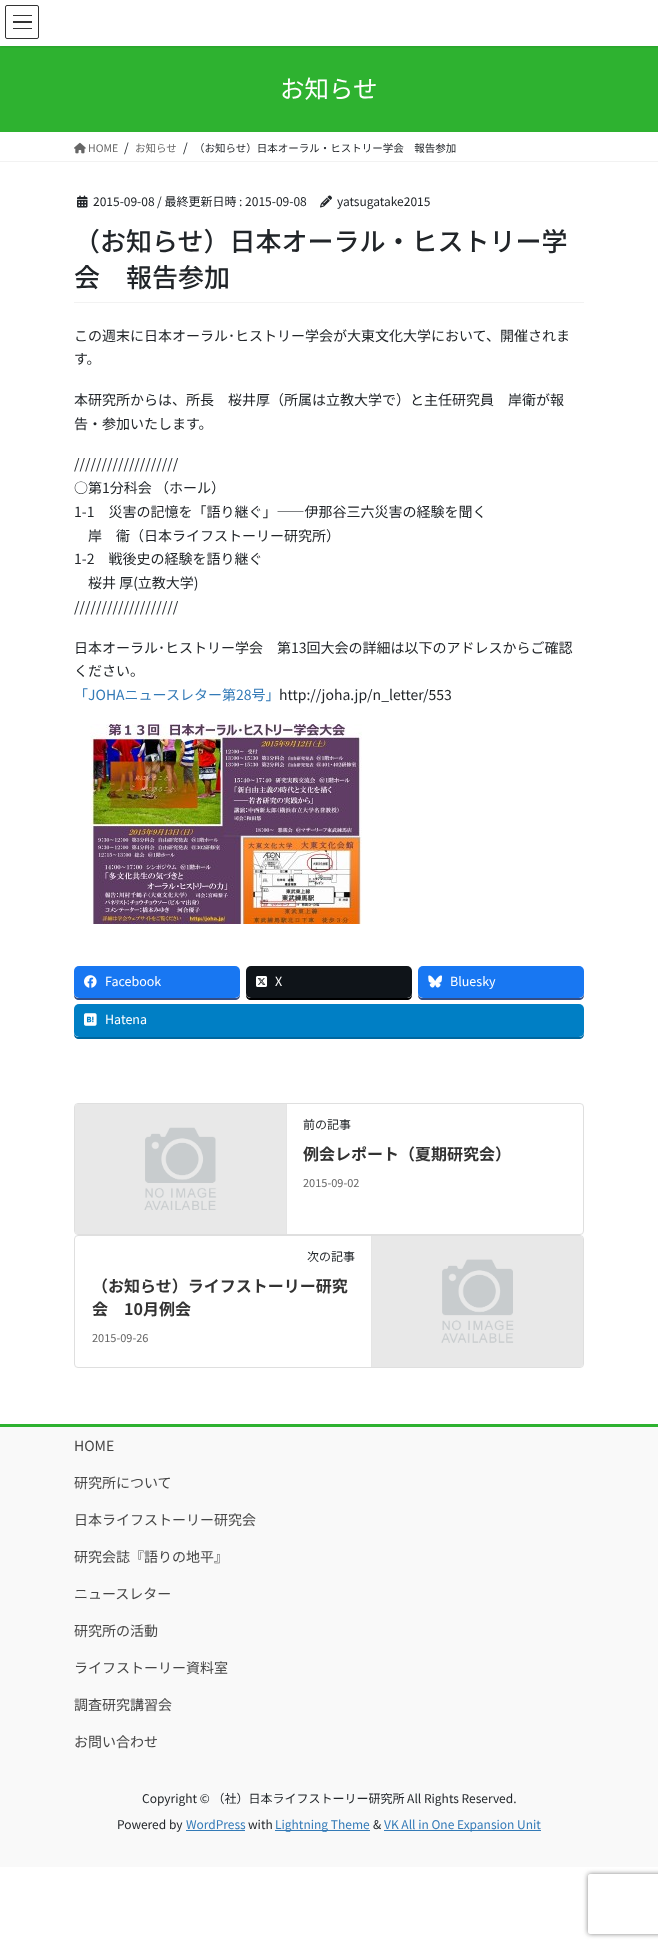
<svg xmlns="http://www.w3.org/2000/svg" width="658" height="1948">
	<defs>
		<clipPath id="clip1"><rect x="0" y="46" width="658" height="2" /></clipPath>
		<clipPath id="clip2"><path d="M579 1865H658V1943H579ZM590 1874H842C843 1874 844 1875 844 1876V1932C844 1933 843 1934 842 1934H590C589 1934 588 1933 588 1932V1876C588 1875 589 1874 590 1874Z" clip-rule="evenodd" /></clipPath>
	</defs>
	<rect width="100%" height="100%" fill="#FFFFFF" />
	<rect x="0" y="46" width="658" height="86" fill="#2EB230" />
	<g clip-path="url(#clip1)">
		<rect x="0" y="1" width="658" height="46" fill="#000000" fill-opacity="0.1" filter="blur(1.5px)" />
	</g>
	<rect x="13" y="15" width="19" height="1" fill="#333333" />
	<rect x="13" y="21" width="19" height="2" fill="#333333" />
	<rect x="13" y="28" width="19" height="1" fill="#333333" />
	<rect x="5.5" y="5.5" width="33" height="33" rx="1.5" fill="none" stroke="#333333" />
	<text x="280" y="98" font-family="Noto Sans JP" font-size="24.5" fill="#FFFFFF">お知らせ</text>
	<rect x="0" y="161" width="658" height="1" fill="#F2F2F2" />
	<image x="74" y="142" width="12" height="12" href="assets/img1.png" />
	<text x="88" y="152" font-family="Noto Sans JP" font-size="10.5" fill="#666666">HOME</text>
	<text x="124" y="152" font-family="Noto Sans JP" font-size="12" fill="#212529">/</text>
	<text x="135" y="152" font-family="Noto Sans JP" font-size="10.5" fill="#666666">お知らせ</text>
	<text x="183" y="152" font-family="Noto Sans JP" font-size="12" fill="#212529">/</text>
	<text x="194" y="152" font-family="Noto Sans JP" font-size="10.5" fill="#212529">（お知らせ）日本オーラル・ヒストリー学会　報告参加</text>
	<rect x="74" y="302" width="510" height="1" fill="#F2F2F2" />
	<image x="77" y="195" width="11" height="13" href="assets/img2.png" />
	<g font-family="Noto Sans JP" font-size="12" fill="#212529">
		<text x="93" y="206">2015-09-08</text>
		<text x="157" y="206">/ 最終更新日時 : 2015-09-08</text>
	</g>
	<image x="320" y="195" width="12" height="13" href="assets/img3.png" />
	<text x="337" y="206" font-family="Noto Sans JP" font-size="12" fill="#212529">yatsugatake2015</text>
	<g font-family="Noto Sans JP" font-size="26" font-weight="500" fill="#212529">
		<text x="74" y="251">（お知らせ）日本オーラル・ヒストリー学</text>
		<text x="74" y="287">会　報告参加</text>
	</g>
	<g font-family="Noto Sans JP" font-size="14" fill="#212529">
		<text x="74" y="341">この週末に日本オーラル･ヒストリー学会が大東文化大学において、開催されま</text>
		<text x="74" y="364">す。</text>
		<text x="74" y="405">本研究所からは、所長　桜井厚（所属は立教大学で）と主任研究員　岸衛が報</text>
		<text x="74" y="429">告・参加いたします。</text>
		<text x="74" y="469">///////////////////</text>
		<text x="74" y="493">○第1分科会 （ホール）</text>
		<text x="74" y="517">1-1　災害の記憶を「語り継ぐ」――伊那谷三六災害の経験を聞く</text>
		<text x="88" y="541">岸　衞（日本ライフストーリー研究所）</text>
		<text x="74" y="564">1-2　戦後史の経験を語り継ぐ</text>
		<text x="88" y="588">桜井 厚(立教大学)</text>
		<text x="74" y="612">///////////////////</text>
		<text x="74" y="653">日本オーラル･ヒストリー学会　第13回大会の詳細は以下のアドレスからご確認</text>
		<text x="74" y="676">ください。</text>
	</g>
	<text x="74" y="700" font-family="Noto Sans JP" font-size="14" fill="#337AB7">「JOHAニュースレター第28号」</text>
	<text x="279" y="700" font-family="Noto Sans JP" font-size="14" fill="#212529">http://joha.jp/n_letter/553</text>
	<image x="90" y="724" width="272" height="200" href="assets/img4.png" />
	<path d="M74 993V995C74 998 76 1000 79 1000H235C238 1000 240 998 240 995V993C240 996 238 998 235 998H79C76 998 74 996 74 993Z" fill="#344E84" />
	<rect x="74" y="966" width="166" height="32" rx="5" fill="#1877F2" />
	<image x="84" y="975" width="13" height="13" href="assets/img5.png" />
	<text x="105" y="986" font-family="Noto Sans JP" font-size="12.5" fill="#FFFFFF">Facebook</text>
	<path d="M246 993V995C246 998 248 1000 251 1000H407C410 1000 412 998 412 995V993C412 996 410 998 407 998H251C248 998 246 996 246 993Z" fill="#000000" />
	<rect x="246" y="966" width="166" height="32" rx="5" fill="#0F1419" />
	<image x="256" y="976" width="12" height="11" href="assets/img6.png" />
	<text x="275" y="986" font-family="Noto Sans JP" font-size="12.5" fill="#FFFFFF">X</text>
	<path d="M418 993V995C418 998 420 1000 423 1000H579C582 1000 584 998 584 995V993C584 996 582 998 579 998H423C420 998 418 996 418 993Z" fill="#344E84" />
	<rect x="418" y="966" width="166" height="32" rx="5" fill="#1877F2" />
	<image x="428" y="975" width="14" height="13" href="assets/img7.png" />
	<text x="450" y="986" font-family="Noto Sans JP" font-size="12.5" fill="#FFFFFF">Bluesky</text>
	<path d="M74 1032V1034C74 1037 76 1039 79 1039H579C582 1039 584 1037 584 1034V1032C584 1035 582 1037 579 1037H79C76 1037 74 1035 74 1032Z" fill="#00679F" />
	<rect x="74" y="1004" width="510" height="33" rx="5" fill="#007FC5" />
	<image x="84" y="1013" width="13" height="13" href="assets/img8.png" />
	<text x="105" y="1024" font-family="Noto Sans JP" font-size="12.5" fill="#FFFFFF">Hatena</text>
	<rect x="74.5" y="1103.5" width="509" height="131" rx="3.5" fill="none" stroke="#DFDFDF" />
	<image x="75" y="1104" width="211" height="130" href="assets/img9.png" />
	<rect x="286" y="1104" width="1" height="130" fill="#E5E5E5" />
	<text x="303" y="1129" font-family="Noto Sans JP" font-size="12" fill="#212529">前の記事</text>
	<text x="303" y="1160" font-family="Noto Sans JP" font-size="16" font-weight="700" fill="#333333">例会レポート（夏期研究会）</text>
	<text x="303" y="1187" font-family="Noto Sans JP" font-size="11" fill="#666666">2015-09-02</text>
	<rect x="74.5" y="1235.5" width="509" height="132" rx="3.5" fill="none" stroke="#DFDFDF" />
	<text x="307" y="1261" font-family="Noto Sans JP" font-size="12" fill="#212529">次の記事</text>
	<g font-family="Noto Sans JP" font-size="16" font-weight="700" fill="#333333">
		<text x="92" y="1292">（お知らせ）ライフストーリー研究</text>
		<text x="92" y="1315">会　10月例会</text>
	</g>
	<text x="92" y="1342" font-family="Noto Sans JP" font-size="11" fill="#666666">2015-09-26</text>
	<image x="372" y="1236" width="211" height="131" href="assets/img10.png" />
	<rect x="371" y="1236" width="1" height="131" fill="#E5E5E5" />
	<rect x="0" y="1427" width="658" height="440" fill="#F9F9F9" />
	<rect x="0" y="1424" width="658" height="3" fill="#2EB230" />
	<g font-family="Noto Sans JP" font-size="14" fill="#464646">
		<text x="74" y="1451">HOME</text>
		<text x="74" y="1488">研究所について</text>
		<text x="74" y="1525">日本ライフストーリー研究会</text>
		<text x="74" y="1562">研究会誌『語りの地平』</text>
		<text x="74" y="1599">ニュースレター</text>
		<text x="74" y="1636">研究所の活動</text>
		<text x="74" y="1673">ライフストーリー資料室</text>
		<text x="74" y="1710">調査研究講習会</text>
		<text x="74" y="1747">お問い合わせ</text>
	</g>
	<g font-family="Noto Sans JP" font-size="12" fill="#212529">
		<text x="142" y="1803">Copyright © （社）日本ライフストーリー研究所 All Rights Reserved.</text>
		<text x="117" y="1829">Powered by</text>
	</g>
	<text x="186" y="1829" font-family="Noto Sans JP" font-size="12" fill="#337AB7">WordPress</text>
	<rect x="186" y="1830" width="59" height="1" fill="#337AB7" />
	<text x="248" y="1829" font-family="Noto Sans JP" font-size="12" fill="#212529">with</text>
	<rect x="275" y="1830" width="95" height="1" fill="#337AB7" />
	<text x="275" y="1829" font-family="Noto Sans JP" font-size="12" fill="#337AB7">Lightning Theme</text>
	<text x="373" y="1829" font-family="Noto Sans JP" font-size="12" fill="#212529">&amp;</text>
	<rect x="384" y="1830" width="157" height="1" fill="#337AB7" />
	<text x="384" y="1829" font-family="Noto Sans JP" font-size="12" fill="#337AB7">VK All in One Expansion Unit</text>
	<g clip-path="url(#clip2)">
		<rect x="588" y="1874" width="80" height="60" rx="2" fill="#808080" filter="blur(2.5px)" />
	</g>
</svg>
